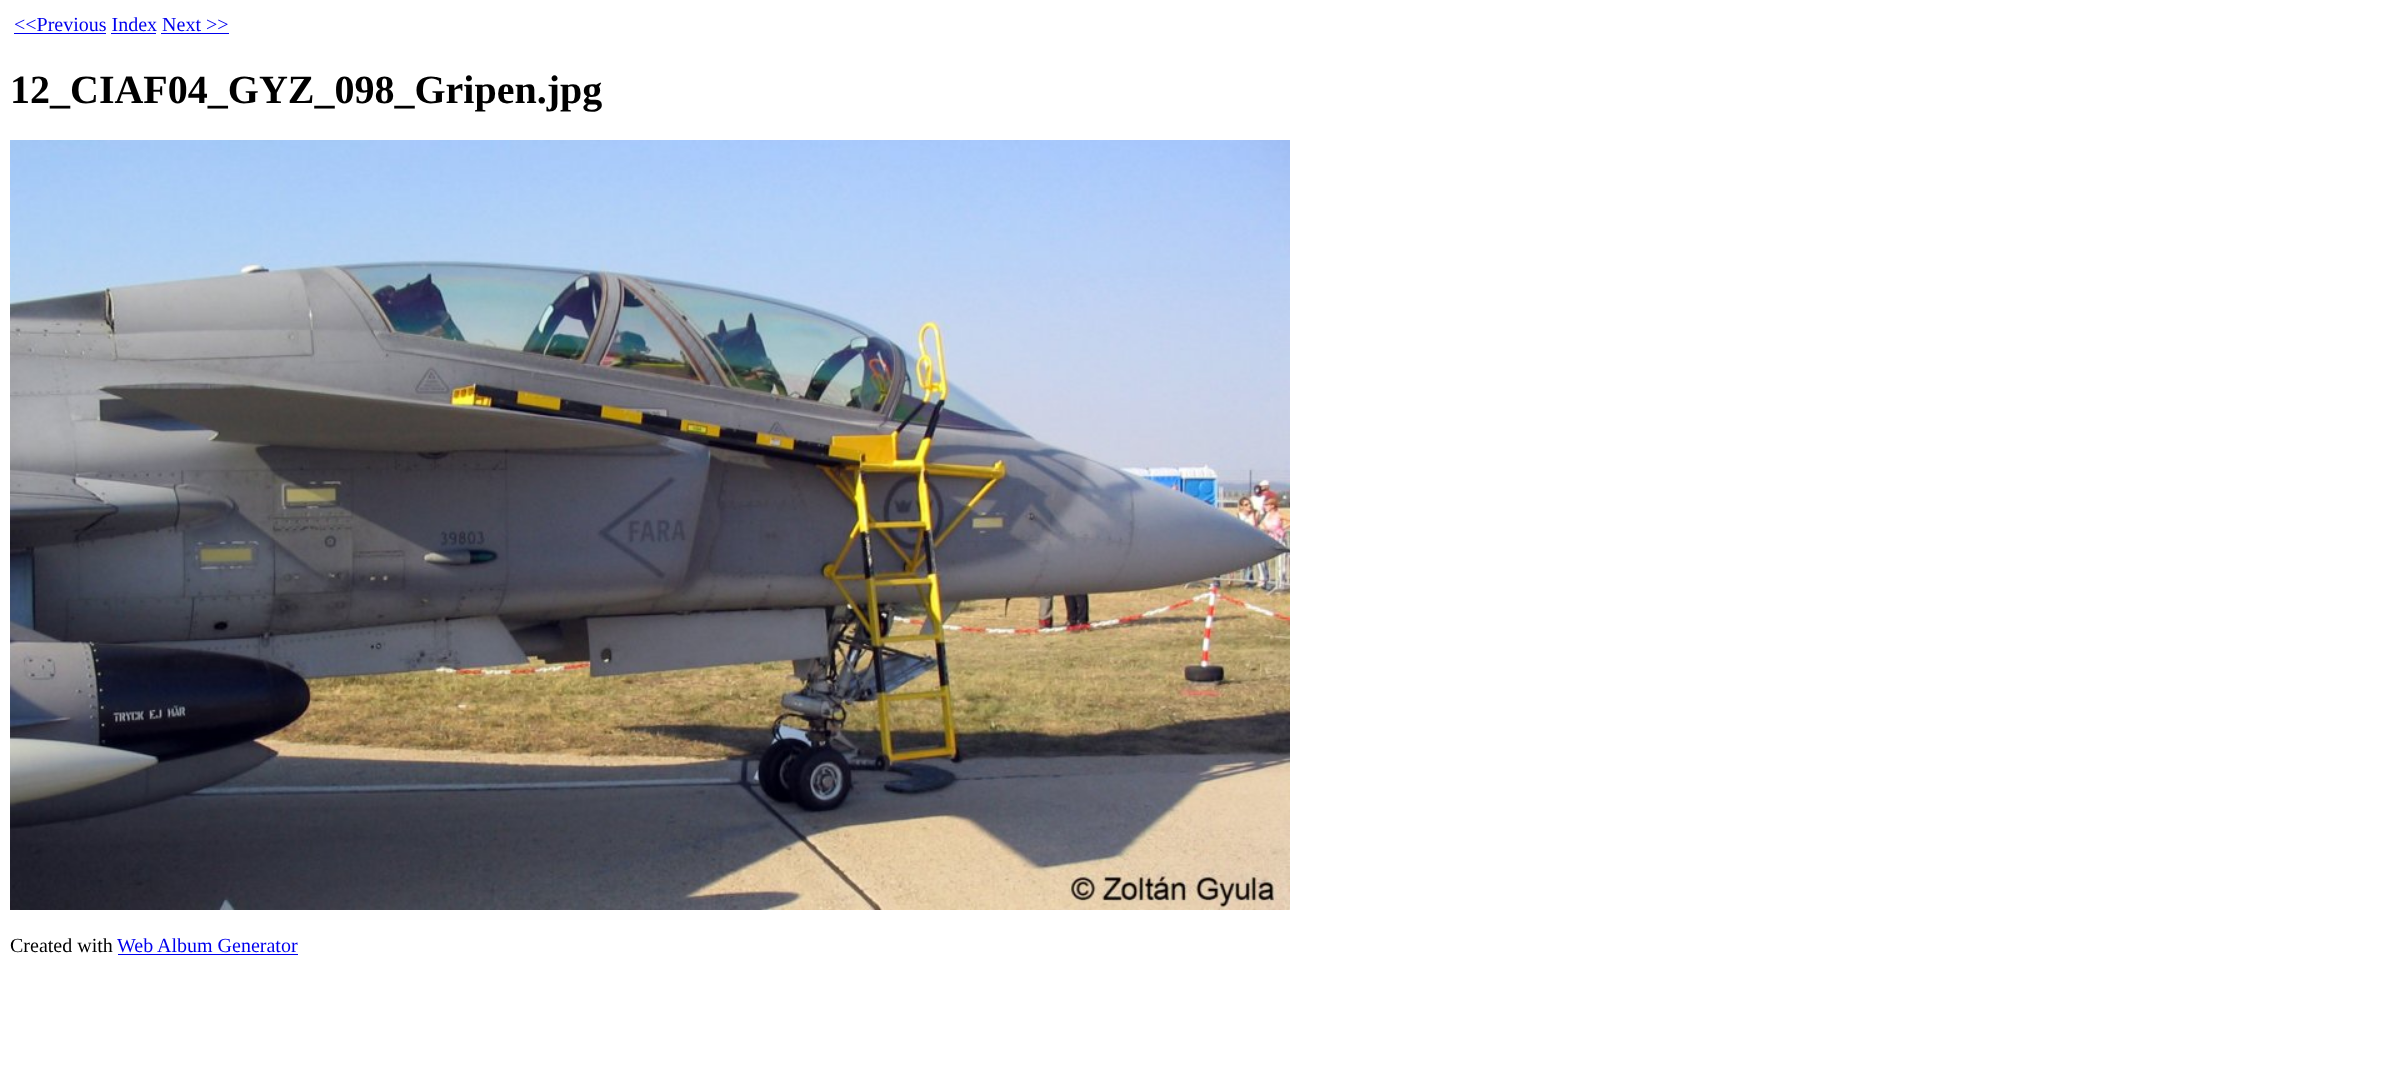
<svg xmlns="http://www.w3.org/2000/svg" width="2395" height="1065">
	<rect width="100%" height="100%" fill="#FFFFFF" />
	<text x="14" y="31" font-family="Liberation Serif" font-size="20" fill="#0000EE">&lt;&lt;Previous Index Next &gt;&gt;</text>
	<rect x="14" y="33" width="92" height="1" fill="#0000EE" />
	<rect x="111" y="33" width="45" height="1" fill="#0000EE" />
	<rect x="161" y="33" width="68" height="1" fill="#0000EE" />
	<text x="10" y="103" font-family="Liberation Serif" font-size="40" font-weight="700" fill="#000000">12_CIAF04_GYZ_098_Gripen.jpg</text>
	<image x="10" y="140" width="1280" height="770" href="assets/img1.png" />
	<text x="10" y="952" font-family="Liberation Serif" font-size="20" fill="#000000">Created with</text>
	<text x="117" y="952" font-family="Liberation Serif" font-size="20" fill="#0000EE">Web Album Generator</text>
	<rect x="118" y="954" width="180" height="1" fill="#0000EE" />
</svg>
